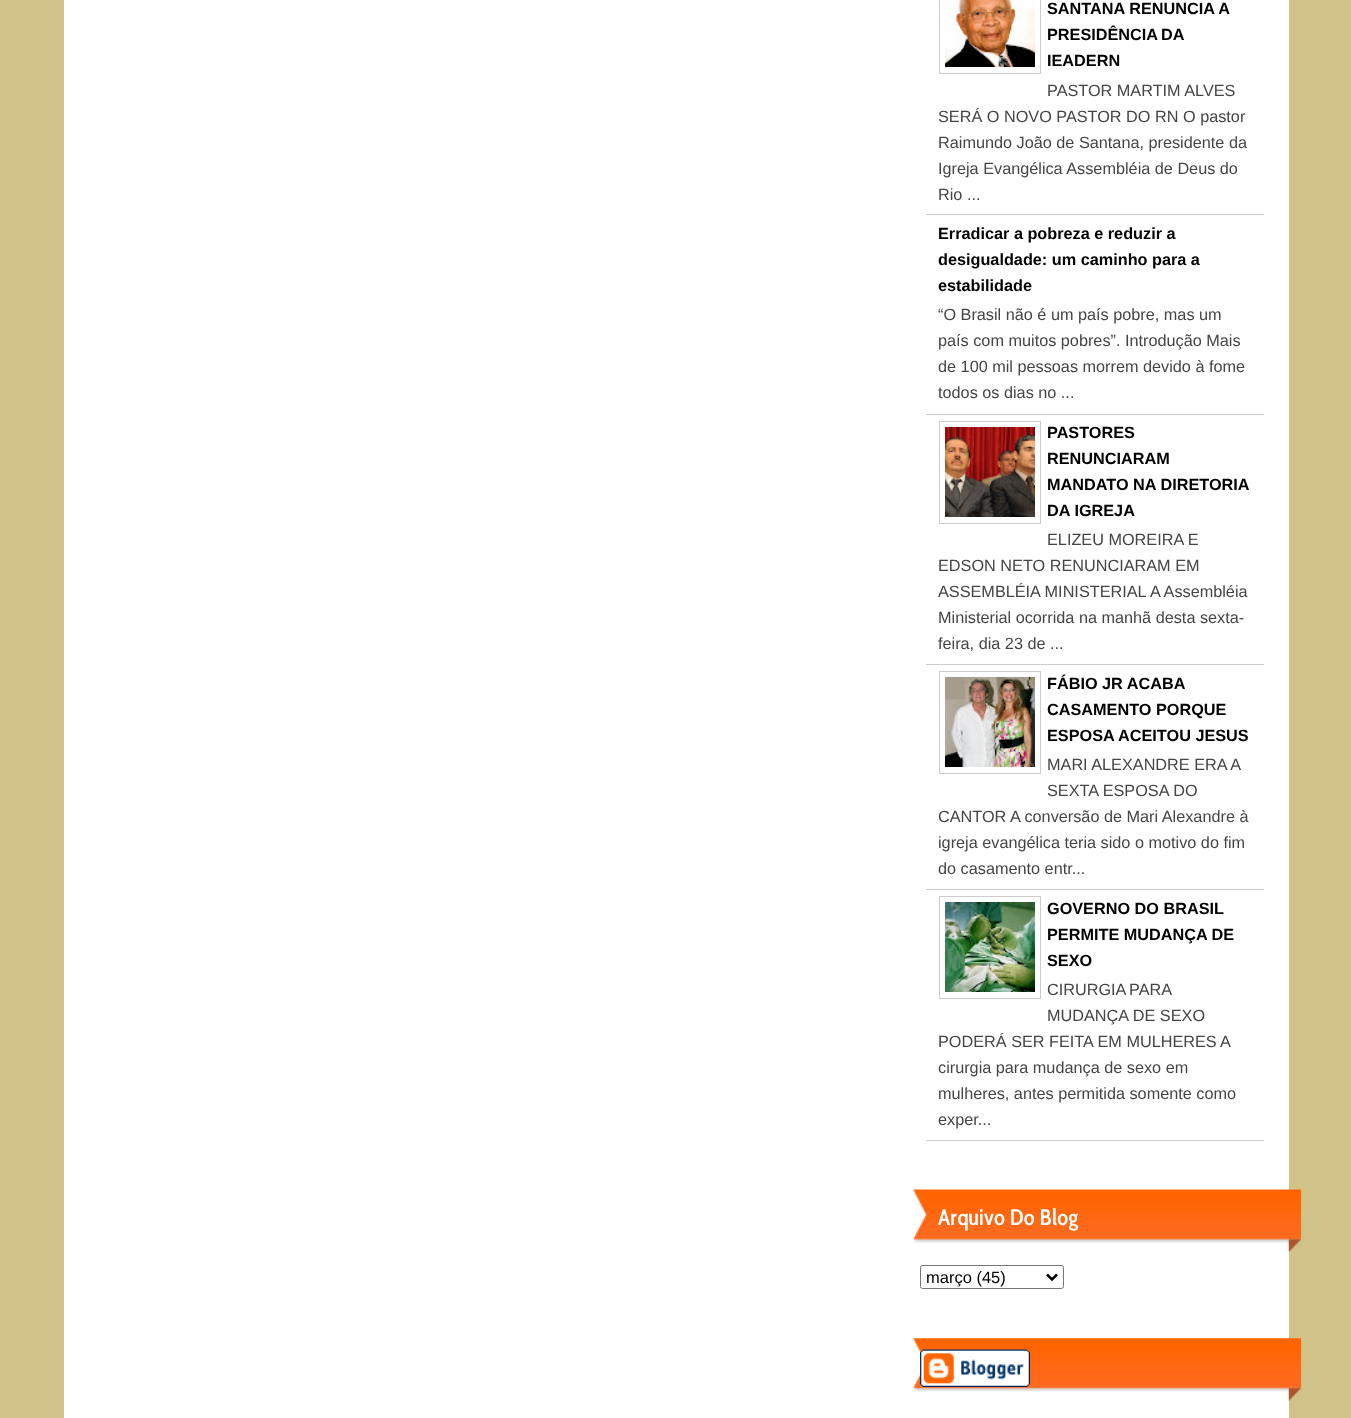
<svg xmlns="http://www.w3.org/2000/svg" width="1351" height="1418">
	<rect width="100%" height="100%" fill="#D1C388" />
	<rect x="64" y="0" width="1225" height="1418" fill="#FFFFFF" />
	<rect x="926" y="214" width="338" height="1" fill="#CCCCCC" />
	<rect x="939.5" y="-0.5" width="101" height="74" fill="none" stroke="#CCCCCC" />
	<image x="945" y="0" width="90" height="67" href="assets/img1.png" />
	<g font-family="Liberation Sans" font-size="16.25" font-weight="700" fill="#000000">
		<text x="1047" y="14">SANTANA RENUNCIA A</text>
		<text x="1047" y="40" word-spacing="-1">PRESIDÊNCIA DA</text>
		<text x="1047" y="66">IEADERN</text>
	</g>
	<g font-family="Liberation Sans" font-size="16.25" fill="#454545">
		<text x="1047" y="96">PASTOR MARTIM ALVES</text>
		<text x="938" y="122">SERÁ O NOVO PASTOR DO RN O pastor</text>
		<text x="938" y="148">Raimundo João de Santana, presidente da</text>
		<text x="938" y="174">Igreja Evangélica Assembléia de Deus do</text>
		<text x="938" y="200">Rio ...</text>
	</g>
	<rect x="926" y="414" width="338" height="1" fill="#CCCCCC" />
	<g font-family="Liberation Sans" font-size="16.25" font-weight="700" fill="#000000">
		<text x="938" y="239">Erradicar a pobreza e reduzir a</text>
		<text x="938" y="265">desigualdade: um caminho para a</text>
		<text x="938" y="291">estabilidade</text>
	</g>
	<g font-family="Liberation Sans" font-size="16.25" fill="#454545">
		<text x="938" y="320">“O Brasil não é um país pobre, mas um</text>
		<text x="938" y="346">país com muitos pobres”. Introdução Mais</text>
		<text x="938" y="372">de 100 mil pessoas morrem devido à fome</text>
		<text x="938" y="398">todos os dias no ...</text>
	</g>
	<rect x="926" y="664" width="338" height="1" fill="#CCCCCC" />
	<rect x="939.5" y="421.5" width="101" height="102" fill="none" stroke="#CCCCCC" />
	<image x="945" y="427" width="90" height="90" href="assets/img2.png" />
	<g font-family="Liberation Sans" font-size="16.25" font-weight="700" fill="#000000">
		<text x="1047" y="438">PASTORES</text>
		<text x="1047" y="464">RENUNCIARAM</text>
		<text x="1047" y="490">MANDATO NA DIRETORIA</text>
		<text x="1047" y="516">DA IGREJA</text>
	</g>
	<g font-family="Liberation Sans" font-size="16.25" fill="#454545">
		<text x="1047" y="545">ELIZEU MOREIRA E</text>
		<text x="938" y="571">EDSON NETO RENUNCIARAM EM</text>
		<text x="938" y="597">ASSEMBLÉIA MINISTERIAL</text>
		<text x="1150" y="597">A Assembléia</text>
		<text x="938" y="623">Ministerial ocorrida na manhã desta sexta-</text>
		<text x="938" y="649">feira, dia 23 de ...</text>
	</g>
	<rect x="926" y="889" width="338" height="1" fill="#CCCCCC" />
	<rect x="939.5" y="671.5" width="101" height="102" fill="none" stroke="#CCCCCC" />
	<image x="945" y="677" width="90" height="90" href="assets/img3.png" />
	<g font-family="Liberation Sans" font-size="16.25" font-weight="700" fill="#000000">
		<text x="1047" y="689">FÁBIO JR ACABA</text>
		<text x="1047" y="715">CASAMENTO PORQUE</text>
		<text x="1047" y="741">ESPOSA ACEITOU JESUS</text>
	</g>
	<g font-family="Liberation Sans" font-size="16.25" fill="#454545">
		<text x="1047" y="770">MARI ALEXANDRE ERA A</text>
		<text x="1047" y="796">SEXTA ESPOSA DO</text>
		<text x="938" y="822">CANTOR</text>
		<text x="1010" y="822">A conversão de Mari Alexandre à</text>
		<text x="938" y="848">igreja evangélica teria sido o motivo do fim</text>
		<text x="938" y="874">do casamento entr...</text>
	</g>
	<rect x="926" y="1140" width="338" height="1" fill="#CCCCCC" />
	<rect x="939.5" y="896.5" width="101" height="102" fill="none" stroke="#CCCCCC" />
	<image x="945" y="902" width="90" height="90" href="assets/img4.png" />
	<g font-family="Liberation Sans" font-size="16.25" font-weight="700" fill="#000000">
		<text x="1047" y="914">GOVERNO DO BRASIL</text>
		<text x="1047" y="940">PERMITE MUDANÇA DE</text>
		<text x="1047" y="966">SEXO</text>
	</g>
	<g font-family="Liberation Sans" font-size="16.25" fill="#454545">
		<text x="1047" y="995" word-spacing="-1">CIRURGIA PARA</text>
		<text x="1047" y="1021">MUDANÇA DE SEXO</text>
		<text x="938" y="1047">PODERÁ SER FEITA EM MULHERES</text>
		<text x="1220" y="1047">A</text>
		<text x="938" y="1073">cirurgia para mudança de sexo em</text>
		<text x="938" y="1099">mulheres, antes permitida somente como</text>
		<text x="938" y="1125">exper...</text>
	</g>
	<image x="913" y="1189" width="389" height="63" href="assets/img5.png" />
	<text x="938" y="1225" font-family="Cabin Condensed" font-size="22.5" font-weight="600" letter-spacing="0.25" fill="#FFFFFF">Arquivo Do Blog</text>
	<rect x="920.5" y="1265.5" width="143" height="23" rx="2" fill="none" stroke="#767676" />
	<path d="M1047 1274.5L1052 1279.5L1057 1274.5" fill="none" stroke="#000000" stroke-width="2.5" />
	<text x="926" y="1283" font-family="Liberation Sans" font-size="16.5" fill="#000000">março (45)</text>
	<image x="913" y="1338" width="389" height="63" href="assets/img6.png" />
	<image x="920" y="1349" width="110" height="38" href="assets/img7.png" />
</svg>
